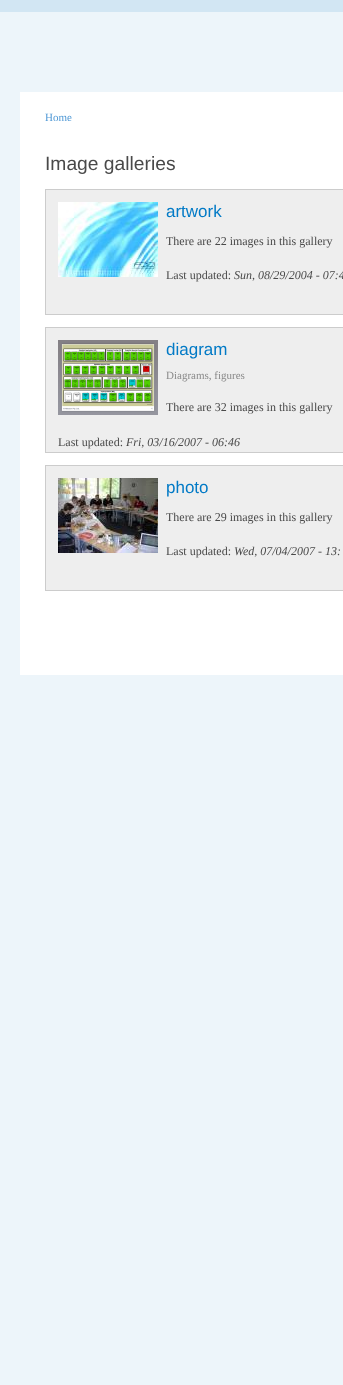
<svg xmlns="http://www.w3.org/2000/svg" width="343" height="1385">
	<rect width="100%" height="100%" fill="#EDF5FA" />
	<rect x="0" y="0" width="343" height="12" fill="#D2E6F3" />
	<rect x="20" y="92" width="323" height="583" fill="#FFFFFF" />
	<text x="45" y="121" font-family="Liberation Serif" font-size="11" fill="#529AD6">Home</text>
	<text x="45" y="170" font-family="Liberation Sans" font-size="19.25" fill="#494949">Image galleries</text>
	<rect x="45.5" y="189.5" width="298" height="125" fill="#EEEEEE" stroke="#CCCCCC" />
	<image x="58" y="202" width="100" height="75" href="assets/img1.png" />
	<text x="166" y="217" font-family="Liberation Sans" font-size="17" fill="#027AC6">artwork</text>
	<g font-family="Liberation Serif" font-size="12" fill="#494949">
		<text x="166" y="245">There are 22 images in this gallery</text>
		<text x="166" y="279">Last updated:</text>
	</g>
	<text x="234" y="279" font-family="Liberation Serif" font-size="12" font-style="italic" fill="#494949">Sun, 08/29/2004 - 07:4</text>
	<rect x="45.5" y="327.5" width="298" height="125" fill="#EEEEEE" stroke="#CCCCCC" />
	<image x="58" y="340" width="100" height="75" href="assets/img2.png" />
	<text x="166" y="355" font-family="Liberation Sans" font-size="17" fill="#027AC6">diagram</text>
	<text x="166" y="379" font-family="Liberation Serif" font-size="11" fill="#898989">Diagrams, figures</text>
	<g font-family="Liberation Serif" font-size="12" fill="#494949">
		<text x="166" y="411">There are 32 images in this gallery</text>
		<text x="58" y="446">Last updated:</text>
	</g>
	<text x="126" y="446" font-family="Liberation Serif" font-size="12" font-style="italic" fill="#494949">Fri, 03/16/2007 - 06:46</text>
	<rect x="45.5" y="465.5" width="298" height="125" fill="#EEEEEE" stroke="#CCCCCC" />
	<image x="58" y="478" width="100" height="75" href="assets/img3.png" />
	<text x="166" y="493" font-family="Liberation Sans" font-size="17" fill="#027AC6">photo</text>
	<g font-family="Liberation Serif" font-size="12" fill="#494949">
		<text x="166" y="521">There are 29 images in this gallery</text>
		<text x="166" y="555">Last updated:</text>
	</g>
	<text x="234" y="555" font-family="Liberation Serif" font-size="12" font-style="italic" fill="#494949">Wed, 07/04/2007 - 13:</text>
</svg>
